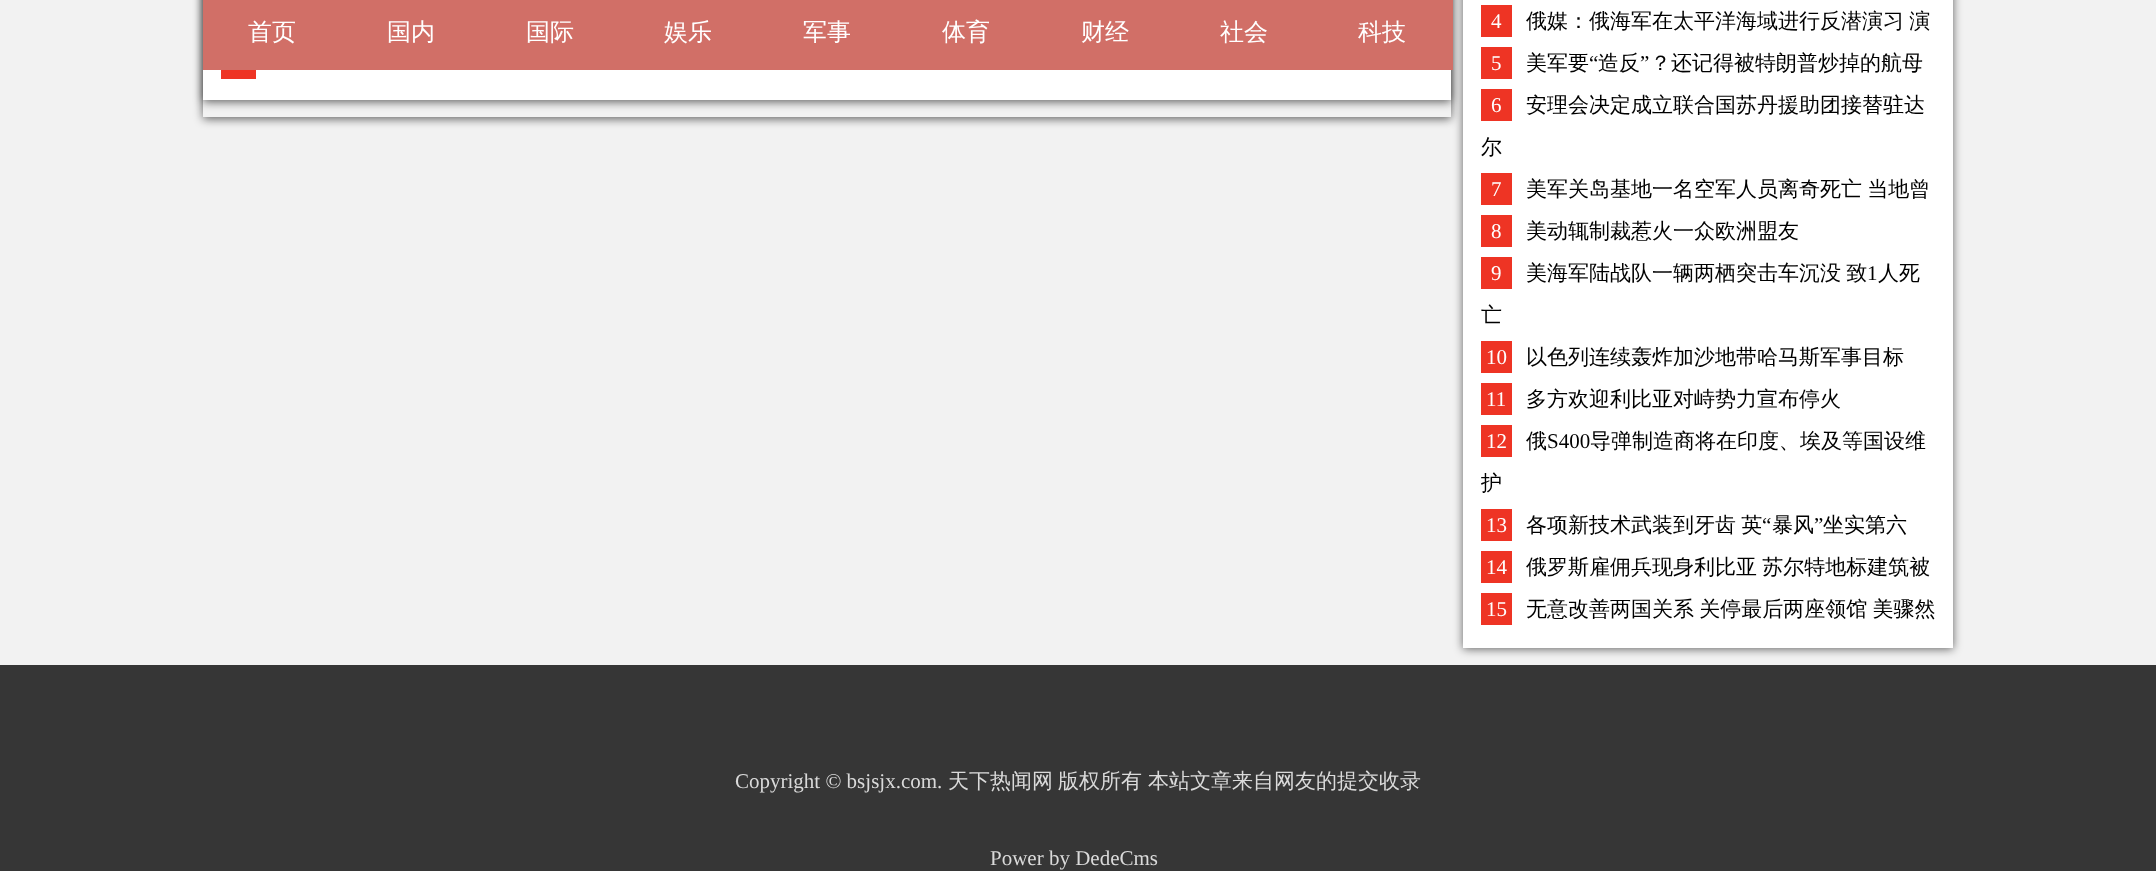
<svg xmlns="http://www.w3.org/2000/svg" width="2156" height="871">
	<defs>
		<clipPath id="clip1"><path d="M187 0H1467V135H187ZM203-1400H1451V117H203Z" clip-rule="evenodd" /></clipPath>
	</defs>
	<rect width="100%" height="100%" fill="#F2F2F2" />
	<g clip-path="url(#clip1)">
		<rect x="203" y="-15" width="1248" height="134" fill="#000000" fill-opacity="0.6" filter="blur(5px)" />
	</g>
	<rect x="203" y="-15" width="1248" height="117" fill="#000000" fill-opacity="0.6" filter="blur(5px)" />
	<rect x="203" y="70" width="1248" height="30" fill="#FFFFFF" />
	<rect x="221" y="70" width="35" height="9" fill="#EE3424" />
	<rect x="1463" y="-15" width="490" height="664" fill="#000000" fill-opacity="0.6" filter="blur(5px)" />
	<rect x="203" y="0" width="1250" height="70" fill="#D16F67" />
	<g font-family="WenQuanYi Zen Hei" font-size="24" font-weight="500" fill="#FFFFFF">
		<text x="248" y="40">首页</text>
		<text x="387" y="40">国内</text>
		<text x="526" y="40">国际</text>
		<text x="664" y="40">娱乐</text>
		<text x="803" y="40">军事</text>
		<text x="942" y="40">体育</text>
		<text x="1081" y="40">财经</text>
		<text x="1220" y="40">社会</text>
		<text x="1358" y="40">科技</text>
	</g>
	<rect x="1463" y="0" width="490" height="648" fill="#FFFFFF" />
	<rect x="1481" y="5" width="31" height="32" fill="#EE3424" />
	<text x="1491" y="28" font-family="Liberation Serif" font-size="21" fill="#FFFFFF">4</text>
	<text x="1526" y="28" word-spacing="-1" font-family="WenQuanYi Zen Hei" font-size="21" font-weight="500" fill="#000000">俄媒：俄海军在太平洋海域进行反潜演习 演</text>
	<rect x="1481" y="47" width="31" height="32" fill="#EE3424" />
	<text x="1491" y="70" font-family="Liberation Serif" font-size="21" fill="#FFFFFF">5</text>
	<text x="1526" y="70" font-family="WenQuanYi Zen Hei" font-size="21" font-weight="500" fill="#000000">美军要</text>
	<text x="1589" y="70" font-family="Liberation Serif" font-size="21" fill="#000000">“</text>
	<text x="1598" y="70" font-family="WenQuanYi Zen Hei" font-size="21" font-weight="500" fill="#000000">造反</text>
	<text x="1640" y="70" font-family="Liberation Serif" font-size="21" fill="#000000">”</text>
	<text x="1650" y="70" font-family="WenQuanYi Zen Hei" font-size="21" font-weight="500" fill="#000000">？还记得被特朗普炒掉的航母</text>
	<rect x="1481" y="89" width="31" height="32" fill="#EE3424" />
	<text x="1491" y="112" font-family="Liberation Serif" font-size="21" fill="#FFFFFF">6</text>
	<g font-family="WenQuanYi Zen Hei" font-size="21" font-weight="500" fill="#000000">
		<text x="1526" y="112">安理会决定成立联合国苏丹援助团接替驻达</text>
		<text x="1481" y="154">尔</text>
	</g>
	<rect x="1481" y="173" width="31" height="32" fill="#EE3424" />
	<text x="1491" y="196" font-family="Liberation Serif" font-size="21" fill="#FFFFFF">7</text>
	<text x="1526" y="196" word-spacing="-1" font-family="WenQuanYi Zen Hei" font-size="21" font-weight="500" fill="#000000">美军关岛基地一名空军人员离奇死亡 当地曾</text>
	<rect x="1481" y="215" width="31" height="32" fill="#EE3424" />
	<text x="1491" y="238" font-family="Liberation Serif" font-size="21" fill="#FFFFFF">8</text>
	<text x="1526" y="238" font-family="WenQuanYi Zen Hei" font-size="21" font-weight="500" fill="#000000">美动辄制裁惹火一众欧洲盟友</text>
	<rect x="1481" y="257" width="31" height="32" fill="#EE3424" />
	<text x="1491" y="280" font-family="Liberation Serif" font-size="21" fill="#FFFFFF">9</text>
	<text x="1526" y="280" word-spacing="-1" font-family="WenQuanYi Zen Hei" font-size="21" font-weight="500" fill="#000000">美海军陆战队一辆两栖突击车沉没 致</text>
	<text x="1867" y="280" font-family="Liberation Serif" font-size="21" fill="#000000">1</text>
	<g font-family="WenQuanYi Zen Hei" font-size="21" font-weight="500" fill="#000000">
		<text x="1878" y="280">人死</text>
		<text x="1481" y="322">亡</text>
	</g>
	<rect x="1481" y="341" width="31" height="32" fill="#EE3424" />
	<text x="1486" y="364" font-family="Liberation Serif" font-size="21" fill="#FFFFFF">10</text>
	<text x="1526" y="364" font-family="WenQuanYi Zen Hei" font-size="21" font-weight="500" fill="#000000">以色列连续轰炸加沙地带哈马斯军事目标</text>
	<rect x="1481" y="383" width="31" height="32" fill="#EE3424" />
	<text x="1486" y="406" font-family="Liberation Serif" font-size="21" fill="#FFFFFF">11</text>
	<text x="1526" y="406" font-family="WenQuanYi Zen Hei" font-size="21" font-weight="500" fill="#000000">多方欢迎利比亚对峙势力宣布停火</text>
	<rect x="1481" y="425" width="31" height="32" fill="#EE3424" />
	<text x="1486" y="448" font-family="Liberation Serif" font-size="21" fill="#FFFFFF">12</text>
	<text x="1526" y="448" font-family="WenQuanYi Zen Hei" font-size="21" font-weight="500" fill="#000000">俄</text>
	<text x="1547" y="448" font-family="Liberation Serif" font-size="21" fill="#000000">S400</text>
	<g font-family="WenQuanYi Zen Hei" font-size="21" font-weight="500" fill="#000000">
		<text x="1590" y="448">导弹制造商将在印度、埃及等国设维</text>
		<text x="1481" y="490">护</text>
	</g>
	<rect x="1481" y="509" width="31" height="32" fill="#EE3424" />
	<text x="1486" y="532" font-family="Liberation Serif" font-size="21" fill="#FFFFFF">13</text>
	<text x="1526" y="532" word-spacing="-1" font-family="WenQuanYi Zen Hei" font-size="21" font-weight="500" fill="#000000">各项新技术武装到牙齿 英</text>
	<text x="1762" y="532" font-family="Liberation Serif" font-size="21" fill="#000000">“</text>
	<text x="1772" y="532" font-family="WenQuanYi Zen Hei" font-size="21" font-weight="500" fill="#000000">暴风</text>
	<text x="1814" y="532" font-family="Liberation Serif" font-size="21" fill="#000000">”</text>
	<text x="1823" y="532" font-family="WenQuanYi Zen Hei" font-size="21" font-weight="500" fill="#000000">坐实第六</text>
	<rect x="1481" y="551" width="31" height="32" fill="#EE3424" />
	<text x="1486" y="574" font-family="Liberation Serif" font-size="21" fill="#FFFFFF">14</text>
	<text x="1526" y="574" word-spacing="-1" font-family="WenQuanYi Zen Hei" font-size="21" font-weight="500" fill="#000000">俄罗斯雇佣兵现身利比亚 苏尔特地标建筑被</text>
	<rect x="1481" y="593" width="31" height="32" fill="#EE3424" />
	<text x="1486" y="616" font-family="Liberation Serif" font-size="21" fill="#FFFFFF">15</text>
	<text x="1526" y="616" word-spacing="-1" font-family="WenQuanYi Zen Hei" font-size="21" font-weight="500" fill="#000000">无意改善两国关系 关停最后两座领馆 美骤然</text>
	<rect x="0" y="665" width="2156" height="206" fill="#363636" />
	<text x="735" y="788" font-family="Liberation Serif" font-size="21" fill="#DADADA">Copyright © bsjsjx.com.</text>
	<g font-family="WenQuanYi Zen Hei" font-size="21" font-weight="500" fill="#DADADA">
		<text x="948" y="788">天下热闻网</text>
		<text x="1058" y="788">版权所有</text>
		<text x="1148" y="788">本站文章来自网友的提交收录</text>
	</g>
	<text x="990" y="865" font-family="Liberation Serif" font-size="21" fill="#DADADA">Power by DedeCms</text>
</svg>
